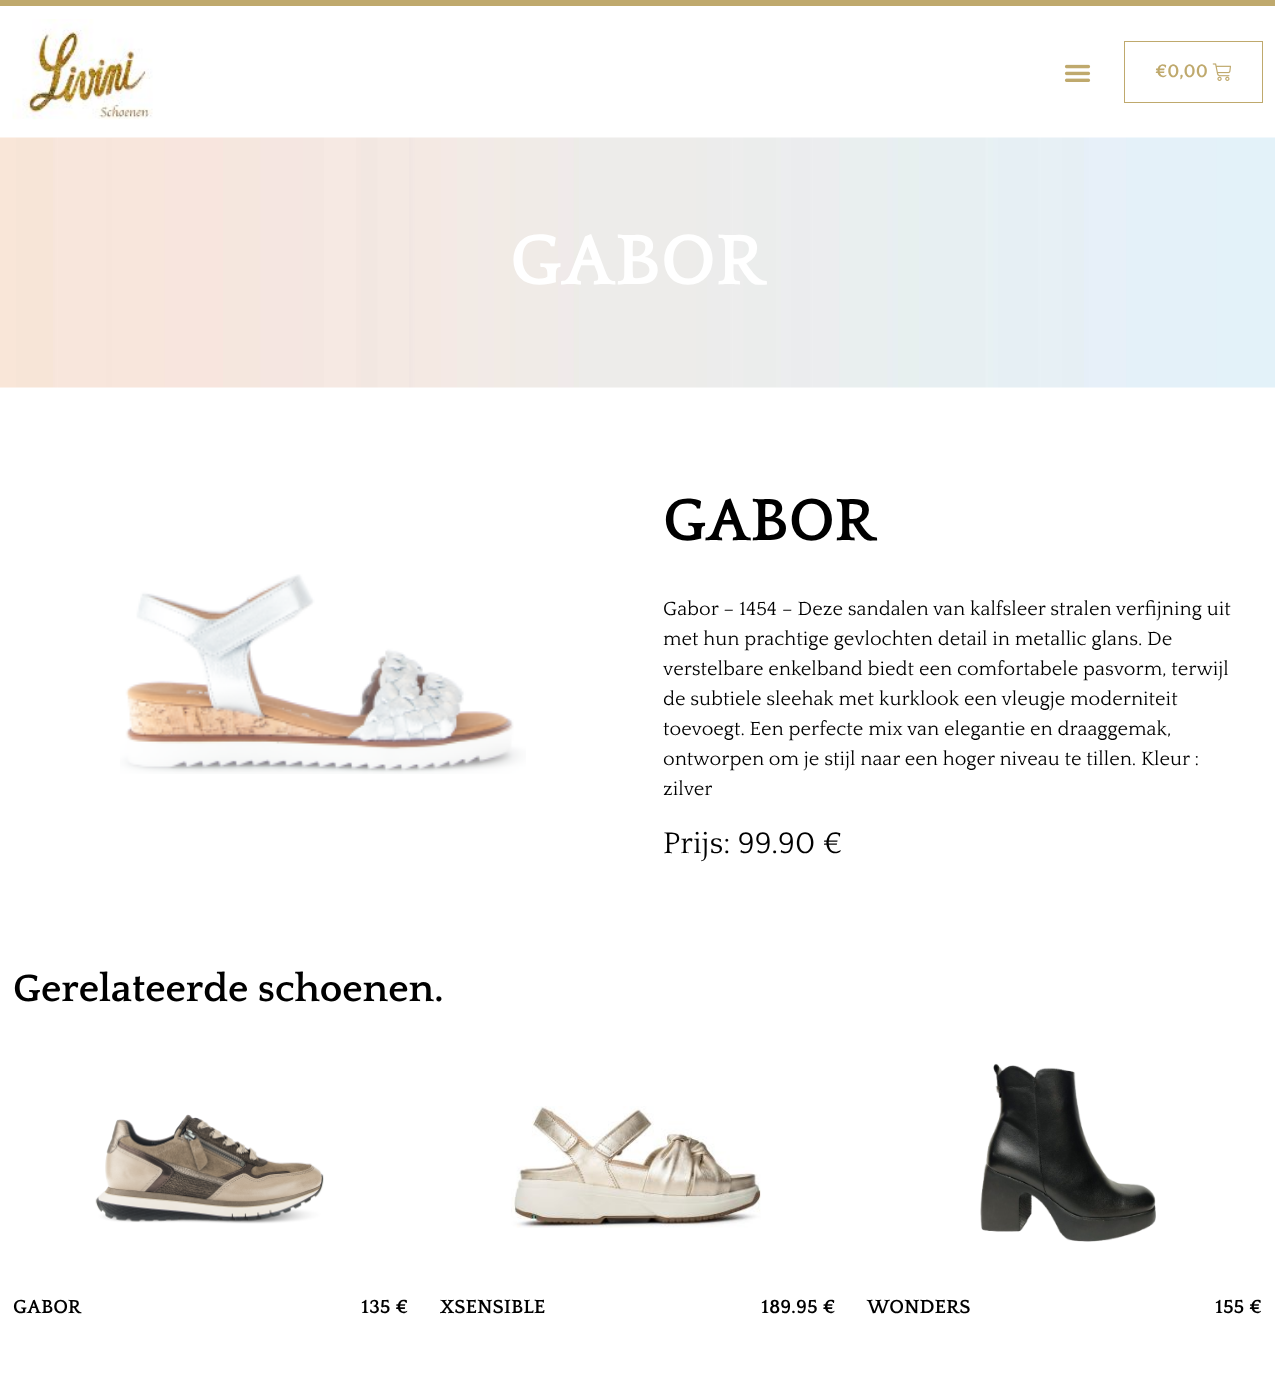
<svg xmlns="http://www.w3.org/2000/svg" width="1275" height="1392">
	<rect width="100%" height="100%" fill="#FFFFFF" />
	<rect x="0" y="0" width="1275" height="6" fill="#BFA96D" />
	<image x="12" y="19" width="141" height="101" href="assets/img1.png" />
	<image x="1064" y="64" width="27" height="18" href="assets/img2.png" />
	<rect x="1124.5" y="41.5" width="138" height="61" fill="none" stroke="#BFA96D" />
	<text x="1155" y="77" font-family="Quattrocento" font-size="19" font-weight="700" fill="#BFA96D">€0,00</text>
	<image x="1212" y="63" width="19" height="18" href="assets/img3.png" />
	<image x="0" y="137" width="1275" height="251" href="assets/img4.png" />
	<text x="510" y="284" font-family="Quattrocento" font-size="75" font-weight="700" fill="#FFFFFF">GABOR</text>
	<image x="120" y="574" width="406" height="200" href="assets/img5.png" />
	<text x="663" y="540" font-family="Quattrocento" font-size="62.5" font-weight="700" fill="#000000">GABOR</text>
	<g font-family="Quattrocento" font-size="20" fill="#000000">
		<text x="663" y="615">Gabor – 1454 – Deze sandalen van kalfsleer stralen verfijning uit</text>
		<text x="663" y="645">met hun prachtige gevlochten detail in metallic glans. De</text>
		<text x="663" y="675">verstelbare enkelband biedt een comfortabele pasvorm, terwijl</text>
		<text x="663" y="705">de subtiele sleehak met kurklook een vleugje moderniteit</text>
		<text x="663" y="735">toevoegt. Een perfecte mix van elegantie en draaggemak,</text>
		<text x="663" y="765">ontworpen om je stijl naar een hoger niveau te tillen. Kleur :</text>
		<text x="663" y="795">zilver</text>
	</g>
	<text x="663" y="853" font-family="Quattrocento" font-size="31.25" fill="#000000">Prijs: 99.90 €</text>
	<text x="13" y="1001" font-family="Quattrocento" font-size="40" font-weight="700" fill="#000000">Gerelateerde schoenen.</text>
	<image x="95" y="1114" width="229" height="110" href="assets/img6.png" />
	<g font-family="Quattrocento" font-size="20" font-weight="700" fill="#000000">
		<text x="13" y="1313">GABOR</text>
		<text x="361" y="1313">135 €</text>
	</g>
	<image x="511" y="1106" width="250" height="122" href="assets/img7.png" />
	<g font-family="Quattrocento" font-size="20" font-weight="700" fill="#000000">
		<text x="440" y="1313">XSENSIBLE</text>
		<text x="761" y="1313">189.95 €</text>
	</g>
	<image x="980" y="1063" width="176" height="179" href="assets/img8.png" />
	<g font-family="Quattrocento" font-size="20" font-weight="700" fill="#000000">
		<text x="867" y="1313">WONDERS</text>
		<text x="1215" y="1313">155 €</text>
	</g>
</svg>
